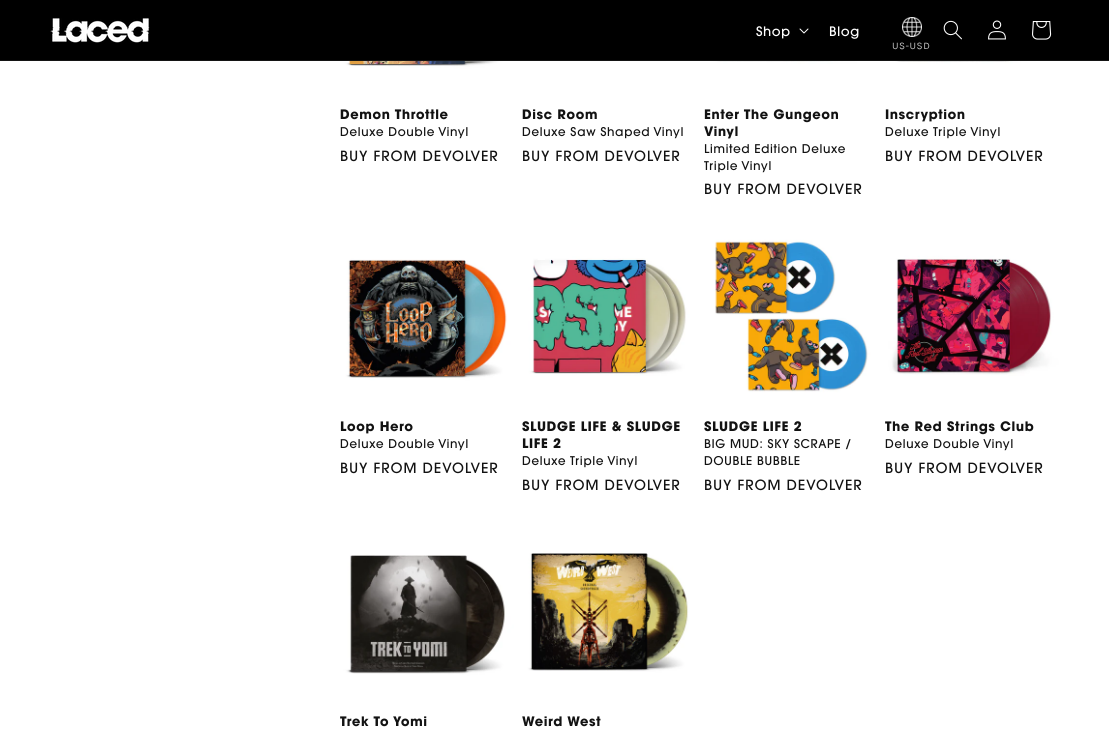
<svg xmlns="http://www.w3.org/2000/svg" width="1109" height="730">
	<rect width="100%" height="100%" fill="#FFFFFF" />
	<rect x="0" y="0" width="1109" height="60" fill="#000000" />
	<rect x="0" y="60" width="1109" height="1" fill="#141414" />
	<image x="50" y="18" width="100" height="25" href="assets/img1.png" />
	<image x="756" y="26" width="34" height="13" href="assets/img2.png" />
	<image x="799" y="28" width="10" height="6" href="assets/img3.png" />
	<image x="829" y="26" width="30" height="13" href="assets/img4.png" />
	<image x="943" y="20" width="19" height="20" href="assets/img5.png" />
	<image x="988" y="20" width="18" height="20" href="assets/img6.png" />
	<image x="1032" y="21" width="20" height="19" href="assets/img7.png" />
	<image x="902" y="17" width="20" height="20" href="assets/img8.png" />
	<text x="892" y="49" font-family="Karla" font-size="10" letter-spacing="0.5" fill="#BFBFBF">US-USD</text>
	<image x="340" y="61" width="174" height="30" href="assets/img9.png" />
	<image x="340" y="109" width="108" height="11" href="assets/img10.png" />
	<image x="340" y="127" width="128" height="12" href="assets/img11.png" />
	<image x="341" y="150" width="157" height="12" href="assets/img12.png" />
	<image x="522" y="61" width="174" height="30" href="assets/img13.png" />
	<image x="522" y="109" width="75" height="11" href="assets/img14.png" />
	<image x="522" y="127" width="161" height="12" href="assets/img15.png" />
	<image x="523" y="150" width="157" height="12" href="assets/img12.png" />
	<image x="704" y="61" width="173" height="30" href="assets/img16.png" />
	<image x="704" y="109" width="134" height="14" href="assets/img17.png" />
	<image x="704" y="126" width="34" height="13" href="assets/img18.png" />
	<image x="704" y="144" width="141" height="10" href="assets/img19.png" />
	<image x="704" y="161" width="67" height="12" href="assets/img20.png" />
	<image x="705" y="183" width="157" height="12" href="assets/img12.png" />
	<image x="885" y="61" width="174" height="30" href="assets/img21.png" />
	<image x="885" y="109" width="80" height="13" href="assets/img22.png" />
	<image x="885" y="127" width="115" height="12" href="assets/img23.png" />
	<image x="886" y="150" width="157" height="12" href="assets/img12.png" />
	<image x="340" y="229" width="174" height="174" href="assets/img24.png" />
	<image x="340" y="421" width="73" height="13" href="assets/img25.png" />
	<image x="340" y="439" width="128" height="12" href="assets/img11.png" />
	<image x="341" y="462" width="157" height="12" href="assets/img12.png" />
	<image x="522" y="229" width="174" height="174" href="assets/img26.png" />
	<image x="522" y="421" width="158" height="11" href="assets/img27.png" />
	<image x="522" y="438" width="39" height="10" href="assets/img28.png" />
	<image x="522" y="456" width="115" height="12" href="assets/img23.png" />
	<image x="523" y="479" width="157" height="12" href="assets/img12.png" />
	<image x="704" y="229" width="173" height="174" href="assets/img29.png" />
	<image x="704" y="421" width="98" height="11" href="assets/img30.png" />
	<image x="704" y="439" width="147" height="11" href="assets/img31.png" />
	<image x="704" y="456" width="96" height="10" href="assets/img32.png" />
	<image x="705" y="479" width="157" height="12" href="assets/img12.png" />
	<image x="885" y="229" width="174" height="174" href="assets/img33.png" />
	<image x="885" y="421" width="149" height="14" href="assets/img34.png" />
	<image x="885" y="439" width="128" height="12" href="assets/img11.png" />
	<image x="886" y="462" width="157" height="12" href="assets/img12.png" />
	<image x="340" y="524" width="174" height="174" href="assets/img35.png" />
	<image x="340" y="716" width="87" height="11" href="assets/img36.png" />
	<image x="522" y="524" width="174" height="174" href="assets/img37.png" />
	<image x="522" y="716" width="79" height="11" href="assets/img38.png" />
</svg>
